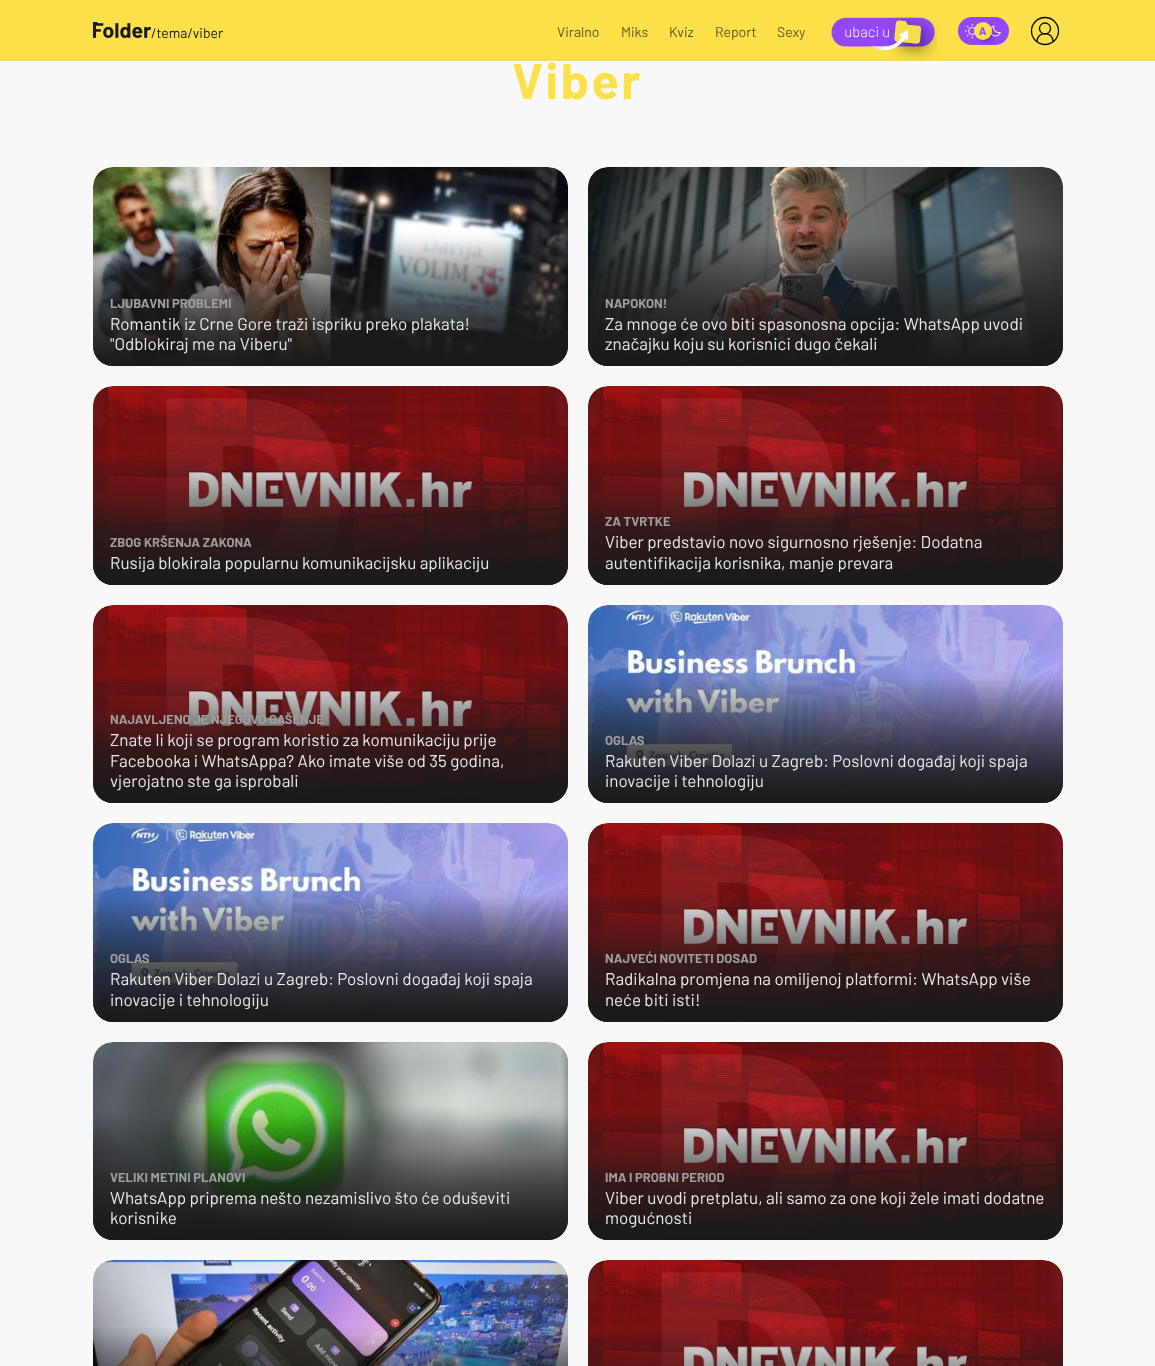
<svg xmlns="http://www.w3.org/2000/svg" width="1155" height="1366">
	<defs>
		<linearGradient id="g1" gradientUnits="userSpaceOnUse" x1="331" y1="167" x2="331" y2="366"><stop offset="0.37" stop-color="#1A1A1A" stop-opacity="0" /><stop offset="1" stop-color="#1A1A1A" /></linearGradient>
		<linearGradient id="g2" gradientUnits="userSpaceOnUse" x1="331" y1="167" x2="331" y2="366"><stop offset="0.32" stop-color="#1A1A1A" stop-opacity="0" /><stop offset="1" stop-color="#1A1A1A" stop-opacity="0.7" /></linearGradient>
		<linearGradient id="g3" gradientUnits="userSpaceOnUse" x1="826" y1="167" x2="826" y2="366"><stop offset="0.37" stop-color="#1A1A1A" stop-opacity="0" /><stop offset="1" stop-color="#1A1A1A" /></linearGradient>
		<linearGradient id="g4" gradientUnits="userSpaceOnUse" x1="826" y1="167" x2="826" y2="366"><stop offset="0.32" stop-color="#1A1A1A" stop-opacity="0" /><stop offset="1" stop-color="#1A1A1A" stop-opacity="0.7" /></linearGradient>
		<linearGradient id="g5" gradientUnits="userSpaceOnUse" x1="331" y1="386" x2="331" y2="585"><stop offset="0.37" stop-color="#1A1A1A" stop-opacity="0" /><stop offset="1" stop-color="#1A1A1A" /></linearGradient>
		<linearGradient id="g6" gradientUnits="userSpaceOnUse" x1="331" y1="386" x2="331" y2="585"><stop offset="0.32" stop-color="#1A1A1A" stop-opacity="0" /><stop offset="1" stop-color="#1A1A1A" stop-opacity="0.7" /></linearGradient>
		<clipPath id="clip1"><rect x="110" y="552" width="379" height="20" /></clipPath>
		<linearGradient id="g7" gradientUnits="userSpaceOnUse" x1="826" y1="386" x2="826" y2="585"><stop offset="0.37" stop-color="#1A1A1A" stop-opacity="0" /><stop offset="1" stop-color="#1A1A1A" /></linearGradient>
		<linearGradient id="g8" gradientUnits="userSpaceOnUse" x1="826" y1="386" x2="826" y2="585"><stop offset="0.32" stop-color="#1A1A1A" stop-opacity="0" /><stop offset="1" stop-color="#1A1A1A" stop-opacity="0.7" /></linearGradient>
		<clipPath id="clip2"><rect x="605" y="531" width="440" height="41" /></clipPath>
		<linearGradient id="g9" gradientUnits="userSpaceOnUse" x1="331" y1="605" x2="331" y2="803"><stop offset="0.37" stop-color="#1A1A1A" stop-opacity="0" /><stop offset="1" stop-color="#1A1A1A" /></linearGradient>
		<linearGradient id="g10" gradientUnits="userSpaceOnUse" x1="331" y1="605" x2="331" y2="803"><stop offset="0.32" stop-color="#1A1A1A" stop-opacity="0" /><stop offset="1" stop-color="#1A1A1A" stop-opacity="0.7" /></linearGradient>
		<linearGradient id="g11" gradientUnits="userSpaceOnUse" x1="826" y1="605" x2="826" y2="803"><stop offset="0.37" stop-color="#1A1A1A" stop-opacity="0" /><stop offset="1" stop-color="#1A1A1A" /></linearGradient>
		<linearGradient id="g12" gradientUnits="userSpaceOnUse" x1="826" y1="605" x2="826" y2="803"><stop offset="0.32" stop-color="#1A1A1A" stop-opacity="0" /><stop offset="1" stop-color="#1A1A1A" stop-opacity="0.7" /></linearGradient>
		<linearGradient id="g13" gradientUnits="userSpaceOnUse" x1="331" y1="823" x2="331" y2="1022"><stop offset="0.37" stop-color="#1A1A1A" stop-opacity="0" /><stop offset="1" stop-color="#1A1A1A" /></linearGradient>
		<linearGradient id="g14" gradientUnits="userSpaceOnUse" x1="331" y1="823" x2="331" y2="1022"><stop offset="0.32" stop-color="#1A1A1A" stop-opacity="0" /><stop offset="1" stop-color="#1A1A1A" stop-opacity="0.7" /></linearGradient>
		<clipPath id="clip3"><rect x="110" y="968" width="440" height="41" /></clipPath>
		<linearGradient id="g15" gradientUnits="userSpaceOnUse" x1="826" y1="823" x2="826" y2="1022"><stop offset="0.37" stop-color="#1A1A1A" stop-opacity="0" /><stop offset="1" stop-color="#1A1A1A" /></linearGradient>
		<linearGradient id="g16" gradientUnits="userSpaceOnUse" x1="826" y1="823" x2="826" y2="1022"><stop offset="0.32" stop-color="#1A1A1A" stop-opacity="0" /><stop offset="1" stop-color="#1A1A1A" stop-opacity="0.7" /></linearGradient>
		<linearGradient id="g17" gradientUnits="userSpaceOnUse" x1="331" y1="1042" x2="331" y2="1240"><stop offset="0.37" stop-color="#1A1A1A" stop-opacity="0" /><stop offset="1" stop-color="#1A1A1A" /></linearGradient>
		<linearGradient id="g18" gradientUnits="userSpaceOnUse" x1="331" y1="1042" x2="331" y2="1240"><stop offset="0.32" stop-color="#1A1A1A" stop-opacity="0" /><stop offset="1" stop-color="#1A1A1A" stop-opacity="0.7" /></linearGradient>
		<linearGradient id="g19" gradientUnits="userSpaceOnUse" x1="826" y1="1042" x2="826" y2="1240"><stop offset="0.37" stop-color="#1A1A1A" stop-opacity="0" /><stop offset="1" stop-color="#1A1A1A" /></linearGradient>
		<linearGradient id="g20" gradientUnits="userSpaceOnUse" x1="826" y1="1042" x2="826" y2="1240"><stop offset="0.32" stop-color="#1A1A1A" stop-opacity="0" /><stop offset="1" stop-color="#1A1A1A" stop-opacity="0.7" /></linearGradient>
		<linearGradient id="g21" gradientUnits="userSpaceOnUse" x1="331" y1="1260" x2="331" y2="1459"><stop offset="0.37" stop-color="#1A1A1A" stop-opacity="0" /><stop offset="1" stop-color="#1A1A1A" /></linearGradient>
		<linearGradient id="g22" gradientUnits="userSpaceOnUse" x1="331" y1="1260" x2="331" y2="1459"><stop offset="0.32" stop-color="#1A1A1A" stop-opacity="0" /><stop offset="1" stop-color="#1A1A1A" stop-opacity="0.7" /></linearGradient>
		<linearGradient id="g23" gradientUnits="userSpaceOnUse" x1="826" y1="1260" x2="826" y2="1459"><stop offset="0.37" stop-color="#1A1A1A" stop-opacity="0" /><stop offset="1" stop-color="#1A1A1A" /></linearGradient>
		<linearGradient id="g24" gradientUnits="userSpaceOnUse" x1="826" y1="1260" x2="826" y2="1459"><stop offset="0.32" stop-color="#1A1A1A" stop-opacity="0" /><stop offset="1" stop-color="#1A1A1A" stop-opacity="0.7" /></linearGradient>
	</defs>
	<rect width="100%" height="100%" fill="#F8F8F8" />
	<rect x="0" y="0" width="1155" height="61" fill="#FBE049" />
	<image x="93" y="22" width="58" height="16" href="assets/img1.png" />
	<text x="151" y="38" font-family="Barlow" font-size="14" fill="#1A1A1A">/tema/viber</text>
	<g font-family="Barlow" font-size="14" fill="#5E5528">
		<text x="557" y="37">Viralno</text>
		<text x="621" y="37">Miks</text>
		<text x="669" y="37">Kviz</text>
		<text x="715" y="37">Report</text>
		<text x="777" y="37">Sexy</text>
	</g>
	<image x="831" y="16" width="107" height="45" href="assets/img2.png" />
	<rect x="958" y="17" width="51" height="28" rx="14" fill="#9248FA" />
	<image x="964" y="23" width="13" height="16" href="assets/img3.png" />
	<image x="991" y="25" width="10" height="12" href="assets/img4.png" />
	<rect x="981" y="30" width="10" height="10" rx="5" fill="#000000" fill-opacity="0.65" filter="blur(3px)" />
	<circle cx="983" cy="31" r="9" fill="#FBE049" />
	<text x="979" y="35" font-family="Barlow" font-size="11" font-weight="700" fill="#9248FA">A</text>
	<path d="M1053 41.5C1053 31 1037 31 1037 41.5" fill="none" stroke="#0A0A0A" stroke-width="1.3" stroke-linecap="round" stroke-linejoin="round" />
	<circle cx="1045" cy="28.5" r="5.5" fill="none" stroke="#0A0A0A" stroke-width="1.3" />
	<circle cx="1045" cy="31" r="13.5" fill="none" stroke="#0A0A0A" stroke-width="1.3" />
	<text x="512" y="99" font-family="Barlow" font-size="50" font-weight="700" letter-spacing="2.5" fill="#FBE049">Viber</text>
	<image x="93" y="167" width="475" height="199" href="assets/img5.png" />
	<image x="93" y="167" width="475" height="199" href="assets/img6.png" />
	<rect x="93" y="167" width="475" height="199" rx="20" fill="url(#g1)" />
	<rect x="93" y="167" width="475" height="199" rx="20" fill="url(#g2)" />
	<text x="110" y="308" font-family="Barlow" font-size="13" font-weight="700" fill="#9D9E9F">LJUBAVNI PROBLEMI</text>
	<g font-family="Barlow" font-size="17" fill="#EAEAEA">
		<text x="110" y="330">Romantik iz Crne Gore traži ispriku preko plakata!</text>
		<text x="110" y="350">"Odblokiraj me na Viberu"</text>
	</g>
	<image x="588" y="167" width="475" height="199" href="assets/img5.png" />
	<image x="588" y="167" width="475" height="199" href="assets/img7.png" />
	<rect x="588" y="167" width="475" height="199" rx="20" fill="url(#g3)" />
	<rect x="588" y="167" width="475" height="199" rx="20" fill="url(#g4)" />
	<text x="605" y="308" font-family="Barlow" font-size="13" font-weight="700" fill="#9D9E9F">NAPOKON!</text>
	<g font-family="Barlow" font-size="17" fill="#EAEAEA">
		<text x="605" y="330">Za mnoge će ovo biti spasonosna opcija: WhatsApp uvodi</text>
		<text x="605" y="350">značajku koju su korisnici dugo čekali</text>
	</g>
	<image x="93" y="386" width="475" height="199" href="assets/img8.png" />
	<image x="93" y="386" width="475" height="199" href="assets/img9.png" />
	<rect x="93" y="386" width="475" height="199" rx="20" fill="url(#g5)" />
	<rect x="93" y="386" width="475" height="199" rx="20" fill="url(#g6)" />
	<text x="110" y="547" font-family="Barlow" font-size="13" font-weight="700" fill="#9D9E9F">ZBOG KRŠENJA ZAKONA</text>
	<g clip-path="url(#clip1)">
		<text x="110" y="569" font-family="Barlow" font-size="17" fill="#EAEAEA">Rusija blokirala popularnu komunikacijsku aplikaciju</text>
	</g>
	<image x="588" y="386" width="475" height="199" href="assets/img8.png" />
	<image x="588" y="386" width="475" height="199" href="assets/img9.png" />
	<rect x="588" y="386" width="475" height="199" rx="20" fill="url(#g7)" />
	<rect x="588" y="386" width="475" height="199" rx="20" fill="url(#g8)" />
	<text x="605" y="526" font-family="Barlow" font-size="13" font-weight="700" fill="#9D9E9F">ZA TVRTKE</text>
	<text x="605" y="548" font-family="Barlow" font-size="17" fill="#EAEAEA">Viber predstavio novo sigurnosno rješenje: Dodatna</text>
	<g clip-path="url(#clip2)">
		<text x="605" y="569" font-family="Barlow" font-size="17" fill="#EAEAEA">autentifikacija korisnika, manje prevara</text>
	</g>
	<image x="93" y="605" width="475" height="198" href="assets/img10.png" />
	<image x="93" y="605" width="475" height="198" href="assets/img11.png" />
	<rect x="93" y="605" width="475" height="198" rx="20" fill="url(#g9)" />
	<rect x="93" y="605" width="475" height="198" rx="20" fill="url(#g10)" />
	<text x="110" y="724" font-family="Barlow" font-size="13" font-weight="700" fill="#9D9E9F">NAJAVLJENO JE NJEGOVO GAŠENJE</text>
	<g font-family="Barlow" font-size="17" fill="#EAEAEA">
		<text x="110" y="746">Znate li koji se program koristio za komunikaciju prije</text>
		<text x="110" y="767">Facebooka i WhatsAppa? Ako imate više od 35 godina,</text>
		<text x="110" y="787">vjerojatno ste ga isprobali</text>
	</g>
	<image x="588" y="605" width="475" height="198" href="assets/img10.png" />
	<image x="588" y="605" width="475" height="198" href="assets/img12.png" />
	<rect x="588" y="605" width="475" height="198" rx="20" fill="url(#g11)" />
	<rect x="588" y="605" width="475" height="198" rx="20" fill="url(#g12)" />
	<text x="605" y="745" font-family="Barlow" font-size="13" font-weight="700" fill="#9D9E9F">OGLAS</text>
	<g font-family="Barlow" font-size="17" fill="#EAEAEA">
		<text x="605" y="767">Rakuten Viber Dolazi u Zagreb: Poslovni događaj koji spaja</text>
		<text x="605" y="787">inovacije i tehnologiju</text>
	</g>
	<image x="93" y="823" width="475" height="199" href="assets/img8.png" />
	<image x="93" y="823" width="475" height="199" href="assets/img13.png" />
	<rect x="93" y="823" width="475" height="199" rx="20" fill="url(#g13)" />
	<rect x="93" y="823" width="475" height="199" rx="20" fill="url(#g14)" />
	<text x="110" y="963" font-family="Barlow" font-size="13" font-weight="700" fill="#9D9E9F">OGLAS</text>
	<text x="110" y="985" font-family="Barlow" font-size="17" fill="#EAEAEA">Rakuten Viber Dolazi u Zagreb: Poslovni događaj koji spaja</text>
	<g clip-path="url(#clip3)">
		<text x="110" y="1006" font-family="Barlow" font-size="17" fill="#EAEAEA">inovacije i tehnologiju</text>
	</g>
	<image x="588" y="823" width="475" height="199" href="assets/img8.png" />
	<image x="588" y="823" width="475" height="199" href="assets/img14.png" />
	<rect x="588" y="823" width="475" height="199" rx="20" fill="url(#g15)" />
	<rect x="588" y="823" width="475" height="199" rx="20" fill="url(#g16)" />
	<text x="605" y="963" font-family="Barlow" font-size="13" font-weight="700" fill="#9D9E9F">NAJVEĆI NOVITETI DOSAD</text>
	<g font-family="Barlow" font-size="17" fill="#EAEAEA">
		<text x="605" y="985">Radikalna promjena na omiljenoj platformi: WhatsApp više</text>
		<text x="605" y="1006">neće biti isti!</text>
	</g>
	<image x="93" y="1042" width="475" height="198" href="assets/img10.png" />
	<image x="93" y="1042" width="475" height="198" href="assets/img15.png" />
	<rect x="93" y="1042" width="475" height="198" rx="20" fill="url(#g17)" />
	<rect x="93" y="1042" width="475" height="198" rx="20" fill="url(#g18)" />
	<text x="110" y="1182" font-family="Barlow" font-size="13" font-weight="700" fill="#9D9E9F">VELIKI METINI PLANOVI</text>
	<g font-family="Barlow" font-size="17" fill="#EAEAEA">
		<text x="110" y="1204">WhatsApp priprema nešto nezamislivo što će oduševiti</text>
		<text x="110" y="1224">korisnike</text>
	</g>
	<image x="588" y="1042" width="475" height="198" href="assets/img10.png" />
	<image x="588" y="1042" width="475" height="198" href="assets/img11.png" />
	<rect x="588" y="1042" width="475" height="198" rx="20" fill="url(#g19)" />
	<rect x="588" y="1042" width="475" height="198" rx="20" fill="url(#g20)" />
	<text x="605" y="1182" font-family="Barlow" font-size="13" font-weight="700" fill="#9D9E9F">IMA I PROBNI PERIOD</text>
	<g font-family="Barlow" font-size="17" fill="#EAEAEA">
		<text x="605" y="1204">Viber uvodi pretplatu, ali samo za one koji žele imati dodatne</text>
		<text x="605" y="1224">mogućnosti</text>
	</g>
	<image x="93" y="1260" width="475" height="20" href="assets/img16.png" />
	<image x="93" y="1260" width="475" height="106" href="assets/img17.png" />
	<rect x="93" y="1336" width="475" height="30" fill="url(#g21)" />
	<rect x="93" y="1328" width="475" height="38" fill="url(#g22)" />
	<image x="588" y="1260" width="475" height="20" href="assets/img16.png" />
	<image x="588" y="1260" width="475" height="106" href="assets/img18.png" />
	<rect x="588" y="1336" width="475" height="30" fill="url(#g23)" />
	<rect x="588" y="1328" width="475" height="38" fill="url(#g24)" />
</svg>
